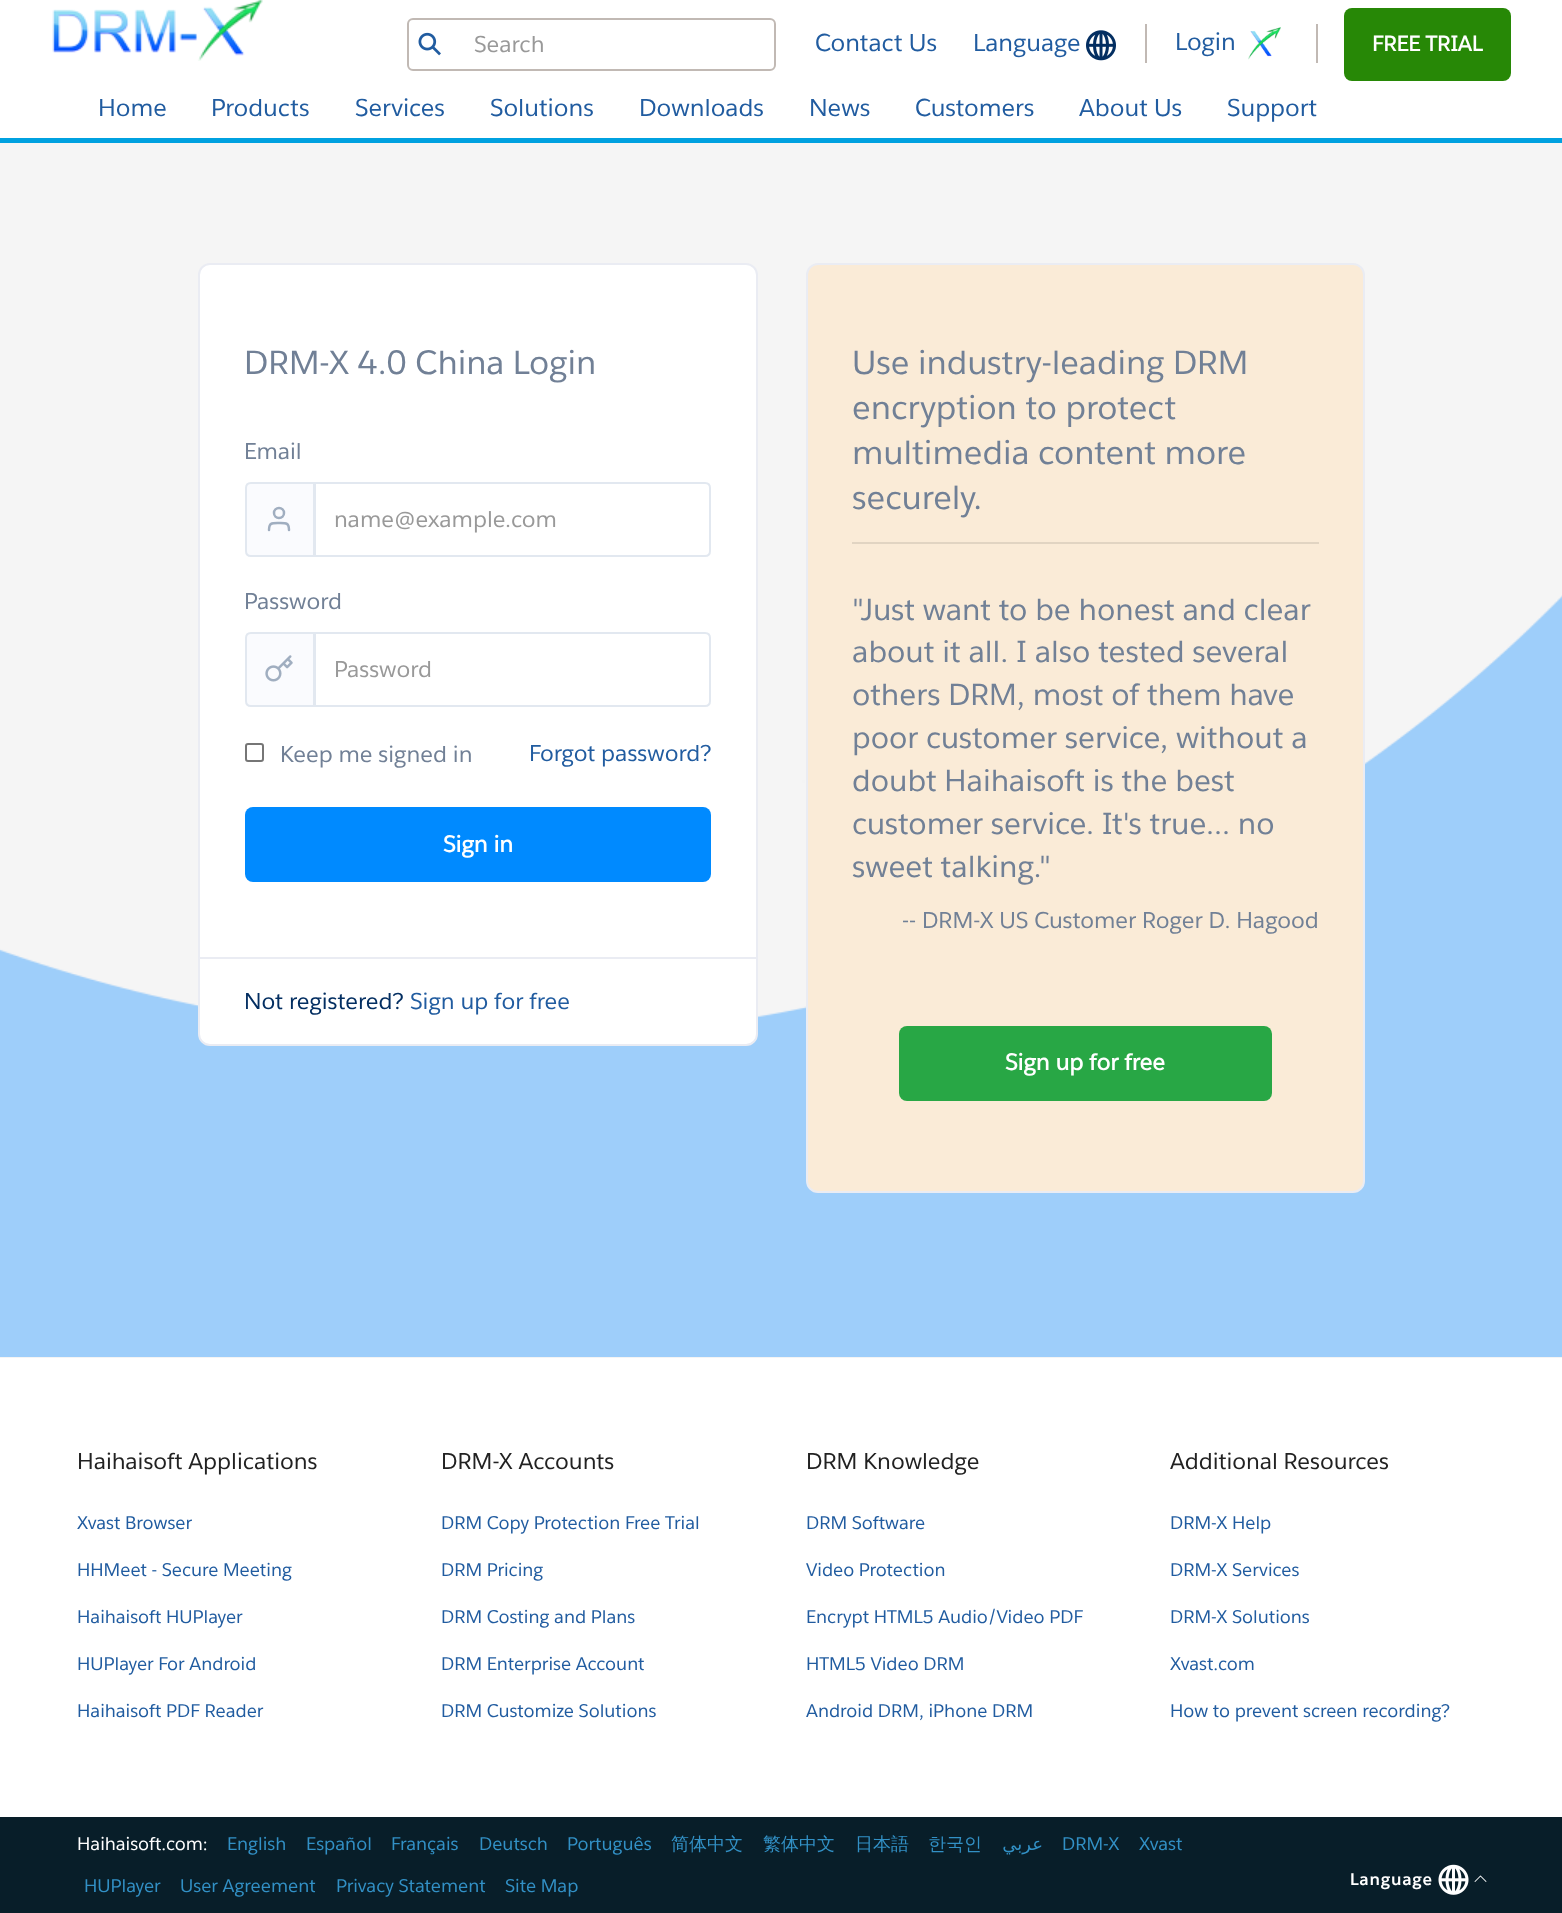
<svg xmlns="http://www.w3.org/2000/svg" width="1562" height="1913">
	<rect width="100%" height="100%" fill="#FFFFFF" />
	<image x="52" y="0" width="211" height="61" href="assets/img1.png" />
	<rect x="408" y="19" width="367" height="51" rx="5" fill="none" stroke="#C1B9B4" stroke-width="2" />
	<image x="418" y="32" width="23" height="24" href="assets/img2.png" />
	<text x="474" y="52" font-family="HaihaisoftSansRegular" font-size="22.5" fill="#999999">Search</text>
	<g font-family="HaihaisoftSansRegular" font-size="24" fill="#215CA0">
		<text x="815" y="51">Contact Us</text>
		<text x="973" y="51">Language</text>
	</g>
	<image x="1086" y="30" width="30" height="31" href="assets/img3.png" />
	<rect x="1145" y="24" width="2" height="39" fill="#C1B9B4" />
	<text x="1175" y="50" font-family="HaihaisoftSansRegular" font-size="24" fill="#215CA0">Login</text>
	<image x="1248" y="27" width="33" height="33" href="assets/img4.png" />
	<rect x="1316" y="24" width="2" height="39" fill="#C1B9B4" />
	<rect x="1344" y="8" width="167" height="73" rx="8" fill="#278806" />
	<text x="1372" y="51" font-family="HaihaisoftSansRegular" font-size="21" font-weight="700" fill="#FFFFFF">FREE TRIAL</text>
	<g font-family="HaihaisoftSansRegular" font-size="24" fill="#215CA0">
		<text x="98" y="116">Home</text>
		<text x="211" y="116">Products</text>
		<text x="355" y="116">Services</text>
		<text x="490" y="116">Solutions</text>
		<text x="639" y="116">Downloads</text>
		<text x="809" y="116">News</text>
		<text x="915" y="116">Customers</text>
		<text x="1079" y="116">About Us</text>
		<text x="1227" y="116">Support</text>
	</g>
	<rect x="0" y="138" width="1562" height="5" fill="#00A1E0" />
	<rect x="0" y="1357" width="1562" height="1" fill="#F4F4F4" />
	<image x="0" y="143" width="1562" height="1214" href="assets/img5.png" />
	<rect x="199" y="264" width="558" height="781" rx="11" fill="#FFFFFF" stroke="#EAECF3" stroke-width="2" />
	<text x="244" y="374" font-family="HaihaisoftSansRegular" font-size="33" fill="#718096">DRM-X 4.0 China Login</text>
	<text x="244" y="459" font-family="HaihaisoftSansRegular" font-size="22.5" fill="#718096">Email</text>
	<path d="M251 483H314V556H251C248 556 246 554 246 551V488C246 485 248 483 251 483Z" fill="#FAFBFE" stroke="#E2E8F0" stroke-width="2" />
	<path d="M289 530C289 522.5 286 523 279 523C272 523 269 522.5 269 530" fill="none" stroke="#A0AEC0" stroke-width="2.5" stroke-linecap="round" stroke-linejoin="round" />
	<circle cx="279" cy="513" r="5" fill="none" stroke="#A0AEC0" stroke-width="2.5" />
	<path d="M315 483H705C708 483 710 485 710 488V551C710 554 708 556 705 556H315Z" fill="none" stroke="#E2E8F0" stroke-width="2" />
	<text x="334" y="527" font-family="HaihaisoftSansRegular" font-size="22.5" fill="#999999">name@example.com</text>
	<text x="244" y="609" font-family="HaihaisoftSansRegular" font-size="22.5" fill="#718096">Password</text>
	<path d="M251 633H314V706H251C248 706 246 704 246 701V638C246 635 248 633 251 633Z" fill="#FAFBFE" stroke="#E2E8F0" stroke-width="2" />
	<image x="265" y="655" width="28" height="27" href="assets/img6.png" />
	<path d="M315 633H705C708 633 710 635 710 638V701C710 704 708 706 705 706H315Z" fill="none" stroke="#E2E8F0" stroke-width="2" />
	<text x="334" y="677" font-family="HaihaisoftSansRegular" font-size="22.5" fill="#999999">Password</text>
	<rect x="246" y="744" width="17" height="17" rx="2" fill="none" stroke="#767676" stroke-width="2" />
	<text x="280" y="762" font-family="HaihaisoftSansRegular" font-size="22.5" fill="#718096">Keep me signed in</text>
	<text x="529" y="761" font-family="HaihaisoftSansRegular" font-size="22.5" fill="#215CA0">Forgot password?</text>
	<rect x="245" y="807" width="466" height="75" rx="8" fill="#008AFF" />
	<text x="443" y="852" font-family="HaihaisoftSansRegular" font-size="22.5" font-weight="700" fill="#FFFFFF">Sign in</text>
	<rect x="200" y="957" width="556" height="2" fill="#EAECF3" />
	<text x="244" y="1009" font-family="HaihaisoftSansRegular" font-size="22.5" fill="#032E61">Not registered?</text>
	<text x="410" y="1009" font-family="HaihaisoftSansRegular" font-size="22.5" fill="#215CA0">Sign up for free</text>
	<rect x="807" y="264" width="557" height="928" rx="11" fill="#FAEBD7" stroke="#EAECF3" stroke-width="2" />
	<g font-family="HaihaisoftSansRegular" font-size="33" fill="#718096">
		<text x="852" y="374">Use industry-leading DRM</text>
		<text x="852" y="419">encryption to protect</text>
		<text x="852" y="464">multimedia content more</text>
		<text x="852" y="509">securely.</text>
	</g>
	<rect x="852" y="542" width="467" height="2" fill="#E1D4C2" />
	<g font-family="HaihaisoftSansRegular" font-size="30" fill="#718096">
		<text x="852" y="620">"Just want to be honest and clear</text>
		<text x="852" y="662">about it all. I also tested several</text>
		<text x="852" y="705">others DRM, most of them have</text>
		<text x="852" y="748">poor customer service, without a</text>
		<text x="852" y="791">doubt Haihaisoft is the best</text>
		<text x="852" y="834">customer service. It's true... no</text>
		<text x="852" y="877">sweet talking."</text>
	</g>
	<text x="902" y="928" font-family="HaihaisoftSansRegular" font-size="22.5" fill="#718096">-- DRM-X US Customer Roger D. Hagood</text>
	<rect x="899" y="1026" width="373" height="75" rx="8" fill="#28A745" />
	<text x="1005" y="1070" font-family="HaihaisoftSansRegular" font-size="22.5" font-weight="700" fill="#FFFFFF">Sign up for free</text>
	<text x="77" y="1469" font-family="HaihaisoftSansRegular" font-size="22.5" fill="#222222">Haihaisoft Applications</text>
	<g font-family="HaihaisoftSansRegular" font-size="18" fill="#215CA0">
		<text x="77" y="1529">Xvast Browser</text>
		<text x="77" y="1576">HHMeet - Secure Meeting</text>
		<text x="77" y="1623">Haihaisoft HUPlayer</text>
		<text x="77" y="1670">HUPlayer For Android</text>
		<text x="77" y="1717">Haihaisoft PDF Reader</text>
	</g>
	<text x="441" y="1469" font-family="HaihaisoftSansRegular" font-size="22.5" fill="#222222">DRM-X Accounts</text>
	<g font-family="HaihaisoftSansRegular" font-size="18" fill="#215CA0">
		<text x="441" y="1529">DRM Copy Protection Free Trial</text>
		<text x="441" y="1576">DRM Pricing</text>
		<text x="441" y="1623">DRM Costing and Plans</text>
		<text x="441" y="1670">DRM Enterprise Account</text>
		<text x="441" y="1717">DRM Customize Solutions</text>
	</g>
	<text x="806" y="1469" font-family="HaihaisoftSansRegular" font-size="22.5" fill="#222222">DRM Knowledge</text>
	<g font-family="HaihaisoftSansRegular" font-size="18" fill="#215CA0">
		<text x="806" y="1529">DRM Software</text>
		<text x="806" y="1576">Video Protection</text>
		<text x="806" y="1623">Encrypt HTML5 Audio/Video PDF</text>
		<text x="806" y="1670">HTML5 Video DRM</text>
		<text x="806" y="1717">Android DRM, iPhone DRM</text>
	</g>
	<text x="1170" y="1469" font-family="HaihaisoftSansRegular" font-size="22.5" fill="#222222">Additional Resources</text>
	<g font-family="HaihaisoftSansRegular" font-size="18" fill="#215CA0">
		<text x="1170" y="1529">DRM-X Help</text>
		<text x="1170" y="1576">DRM-X Services</text>
		<text x="1170" y="1623">DRM-X Solutions</text>
		<text x="1170" y="1670">Xvast.com</text>
		<text x="1170" y="1717">How to prevent screen recording?</text>
	</g>
	<rect x="0" y="1817" width="1562" height="96" fill="#081E29" />
	<text x="77" y="1850" font-family="HaihaisoftSansRegular" font-size="18" fill="#FFFFFF">Haihaisoft.com:</text>
	<g font-family="HaihaisoftSansRegular" font-size="18" fill="#3290C5">
		<text x="227" y="1850">English</text>
		<text x="306" y="1850">Español</text>
		<text x="391" y="1850">Français</text>
		<text x="479" y="1850">Deutsch</text>
		<text x="567" y="1850">Português</text>
	</g>
	<g font-family="WenQuanYi Zen Hei" font-size="18" font-weight="500" fill="#3290C5">
		<text x="671" y="1850">简体中文</text>
		<text x="763" y="1850">繁体中文</text>
		<text x="855" y="1850">日本語</text>
		<text x="928" y="1850">한국인</text>
	</g>
	<text x="1043" y="1850" font-family="DejaVu Sans" font-size="18" direction="rtl" fill="#3290C5">عربي</text>
	<g font-family="HaihaisoftSansRegular" font-size="18" fill="#3290C5">
		<text x="1062" y="1850">DRM-X</text>
		<text x="1139" y="1850">Xvast</text>
		<text x="84" y="1892">HUPlayer</text>
		<text x="180" y="1892">User Agreement</text>
		<text x="336" y="1892">Privacy Statement</text>
		<text x="505" y="1892">Site Map</text>
	</g>
	<text x="1350" y="1885" font-family="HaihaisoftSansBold" font-size="16.5" font-weight="700" letter-spacing="0.75" fill="#FFFFFF">Language</text>
	<image x="1438" y="1864" width="31" height="31" href="assets/img7.png" />
	<image x="1474" y="1875" width="13" height="7" href="assets/img8.png" />
</svg>
